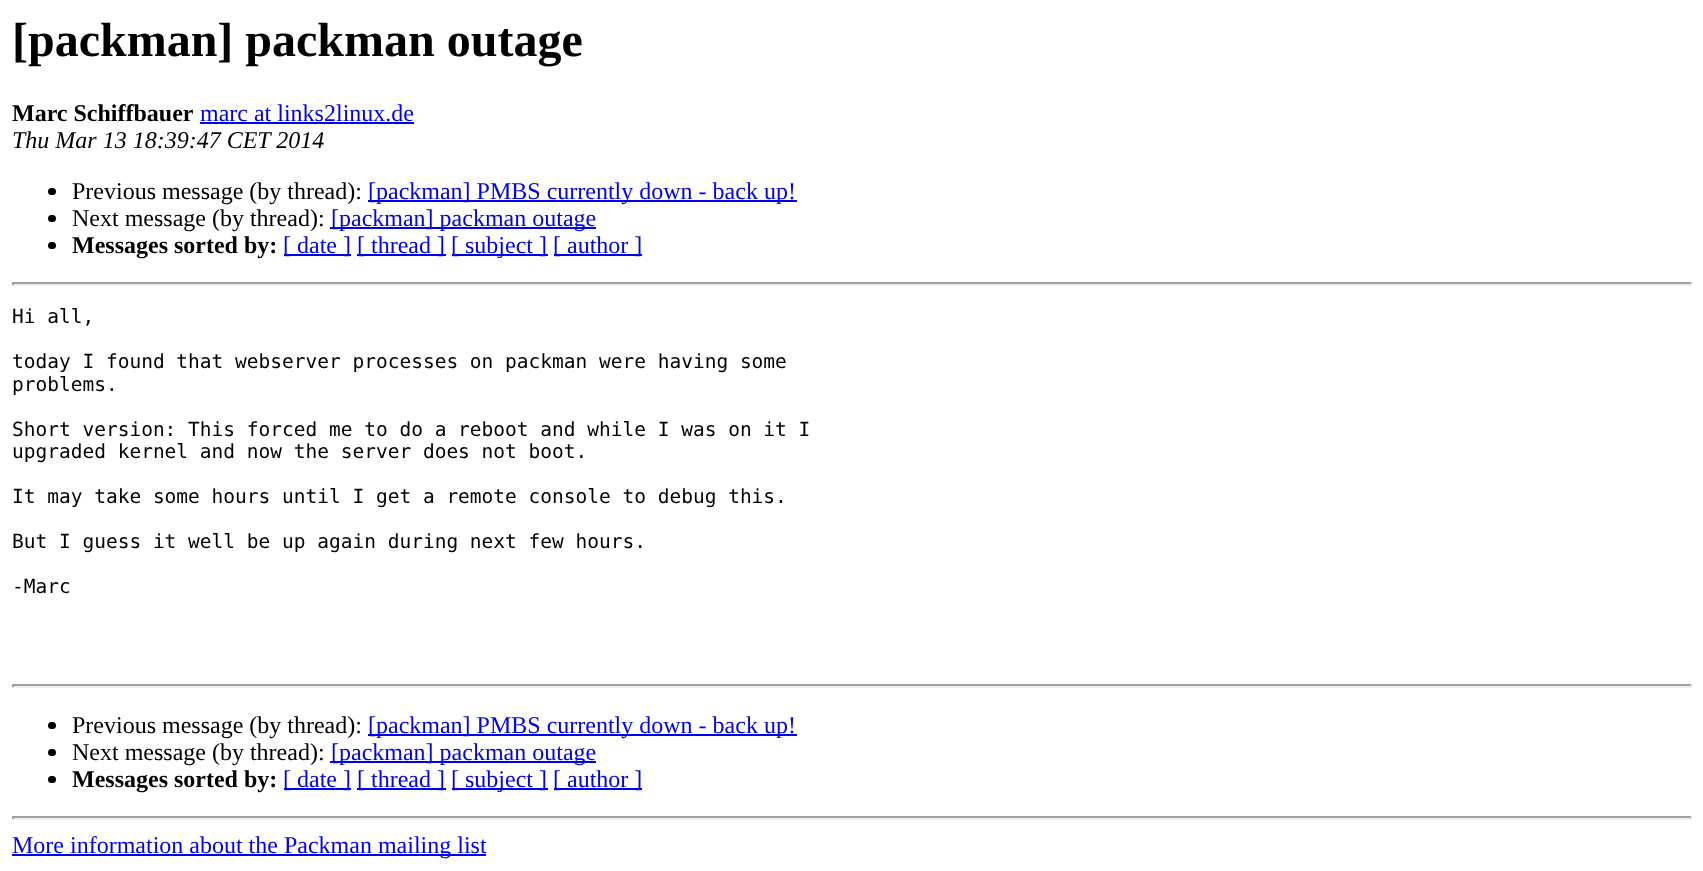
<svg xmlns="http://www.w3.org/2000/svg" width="1703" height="871">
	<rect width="100%" height="100%" fill="#FFFFFF" />
	<text x="12" y="56" font-family="Liberation Serif" font-size="48" font-weight="700" fill="#000000">[packman] packman outage</text>
	<text x="12" y="121" font-family="Liberation Serif" font-size="24" font-weight="700" fill="#000000">Marc Schiffbauer</text>
	<text x="200" y="121" font-family="Liberation Serif" font-size="24" fill="#0000EE">marc at links2linux.de</text>
	<rect x="200" y="122" width="214" height="2" fill="#0000EE" />
	<text x="12" y="148" font-family="Liberation Serif" font-size="24" font-style="italic" fill="#000000">Thu Mar 13 18:39:47 CET 2014</text>
	<rect x="48" y="188" width="8" height="7" rx="3.5" fill="#000000" />
	<text x="72" y="199" font-family="Liberation Serif" font-size="24" fill="#000000">Previous message (by thread):</text>
	<rect x="368" y="200" width="429" height="2" fill="#0000EE" />
	<text x="368" y="199" font-family="Liberation Serif" font-size="24" fill="#0000EE">[packman] PMBS currently down - back up!</text>
	<rect x="48" y="215" width="8" height="7" rx="3.5" fill="#000000" />
	<text x="72" y="226" font-family="Liberation Serif" font-size="24" fill="#000000">Next message (by thread):</text>
	<rect x="330" y="227" width="266" height="2" fill="#0000EE" />
	<text x="331" y="226" font-family="Liberation Serif" font-size="24" fill="#0000EE">[packman] packman outage</text>
	<rect x="48" y="242" width="8" height="7" rx="3.5" fill="#000000" />
	<text x="72" y="253" font-family="Liberation Serif" font-size="24" font-weight="700" fill="#000000">Messages sorted by:</text>
	<rect x="284" y="254" width="67" height="2" fill="#0000EE" />
	<text x="283" y="253" font-family="Liberation Serif" font-size="24" fill="#0000EE">[ date ]</text>
	<rect x="357" y="254" width="89" height="2" fill="#0000EE" />
	<text x="357" y="253" font-family="Liberation Serif" font-size="24" fill="#0000EE">[ thread ]</text>
	<rect x="452" y="254" width="96" height="2" fill="#0000EE" />
	<text x="451" y="253" font-family="Liberation Serif" font-size="24" fill="#0000EE">[ subject ]</text>
	<rect x="554" y="254" width="88" height="2" fill="#0000EE" />
	<text x="553" y="253" font-family="Liberation Serif" font-size="24" fill="#0000EE">[ author ]</text>
	<rect x="12" y="282" width="1680" height="2" fill="#9F9F9F" />
	<rect x="1691" y="282" width="2" height="3" fill="#EEEEEE" />
	<rect x="12" y="284" width="1680" height="2" fill="#EEEEEE" />
	<rect x="12" y="282" width="2" height="3" fill="#9F9F9F" />
	<g font-family="DejaVu Sans Mono" font-size="19.5" fill="#000000">
		<text x="12" y="323">Hi all,</text>
		<text x="12" y="368">today I found that webserver processes on packman were having some</text>
		<text x="12" y="391">problems.</text>
		<text x="12" y="436">Short version: This forced me to do a reboot and while I was on it I</text>
		<text x="12" y="458">upgraded kernel and now the server does not boot.</text>
		<text x="12" y="503">It may take some hours until I get a remote console to debug this.</text>
		<text x="12" y="548">But I guess it well be up again during next few hours.</text>
		<text x="12" y="593">-Marc</text>
	</g>
	<rect x="12" y="684" width="1680" height="2" fill="#9F9F9F" />
	<rect x="1691" y="684" width="2" height="3" fill="#EEEEEE" />
	<rect x="12" y="686" width="1680" height="2" fill="#EEEEEE" />
	<rect x="12" y="684" width="2" height="3" fill="#9F9F9F" />
	<rect x="48" y="722" width="8" height="7" rx="3.5" fill="#000000" />
	<text x="72" y="733" font-family="Liberation Serif" font-size="24" fill="#000000">Previous message (by thread):</text>
	<rect x="368" y="734" width="429" height="2" fill="#0000EE" />
	<text x="368" y="733" font-family="Liberation Serif" font-size="24" fill="#0000EE">[packman] PMBS currently down - back up!</text>
	<rect x="48" y="749" width="8" height="7" rx="3.5" fill="#000000" />
	<text x="72" y="760" font-family="Liberation Serif" font-size="24" fill="#000000">Next message (by thread):</text>
	<rect x="330" y="761" width="266" height="2" fill="#0000EE" />
	<text x="331" y="760" font-family="Liberation Serif" font-size="24" fill="#0000EE">[packman] packman outage</text>
	<rect x="48" y="776" width="8" height="7" rx="3.5" fill="#000000" />
	<text x="72" y="787" font-family="Liberation Serif" font-size="24" font-weight="700" fill="#000000">Messages sorted by:</text>
	<rect x="284" y="788" width="67" height="2" fill="#0000EE" />
	<text x="283" y="787" font-family="Liberation Serif" font-size="24" fill="#0000EE">[ date ]</text>
	<rect x="357" y="788" width="89" height="2" fill="#0000EE" />
	<text x="357" y="787" font-family="Liberation Serif" font-size="24" fill="#0000EE">[ thread ]</text>
	<rect x="452" y="788" width="96" height="2" fill="#0000EE" />
	<text x="451" y="787" font-family="Liberation Serif" font-size="24" fill="#0000EE">[ subject ]</text>
	<rect x="554" y="788" width="88" height="2" fill="#0000EE" />
	<text x="553" y="787" font-family="Liberation Serif" font-size="24" fill="#0000EE">[ author ]</text>
	<rect x="12" y="816" width="1680" height="2" fill="#9F9F9F" />
	<rect x="1691" y="816" width="2" height="3" fill="#EEEEEE" />
	<rect x="12" y="818" width="1680" height="2" fill="#EEEEEE" />
	<rect x="12" y="816" width="2" height="3" fill="#9F9F9F" />
	<rect x="12" y="854" width="474" height="2" fill="#0000EE" />
	<text x="12" y="853" font-family="Liberation Serif" font-size="24" fill="#0000EE">More information about the Packman mailing list</text>
</svg>
